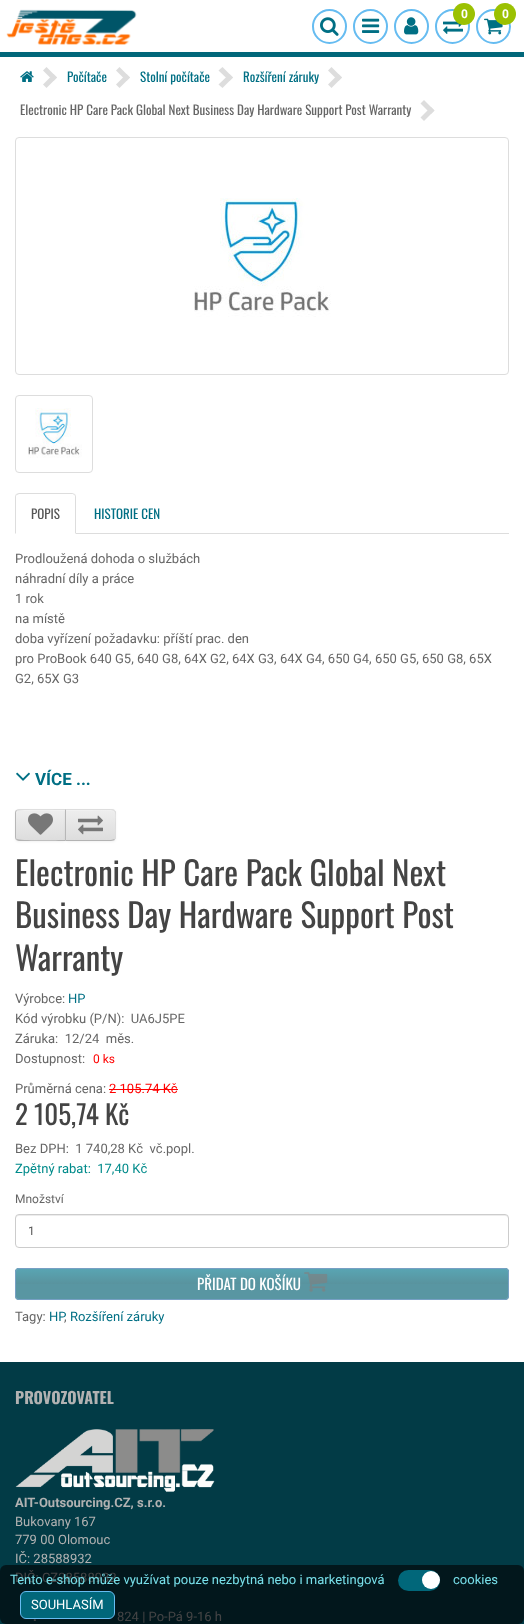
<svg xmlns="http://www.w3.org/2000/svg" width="524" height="1624">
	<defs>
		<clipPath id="clip1"><path d="M19 809H66V841H19C17 841 15 839 15 837V813C15 811 17 809 19 809Z" /></clipPath>
		<linearGradient id="g1" gradientUnits="userSpaceOnUse" x1="41" y1="810" x2="41" y2="840"><stop offset="0" stop-color="#EEEEEE" /><stop offset="1" stop-color="#DDDDDD" /></linearGradient>
		<clipPath id="clip2"><path d="M65 809H112C114 809 116 811 116 813V837C116 839 114 841 112 841H65Z" /></clipPath>
		<linearGradient id="g2" gradientUnits="userSpaceOnUse" x1="91" y1="810" x2="91" y2="840"><stop offset="0" stop-color="#EEEEEE" /><stop offset="1" stop-color="#DDDDDD" /></linearGradient>
		<linearGradient id="g3" gradientUnits="userSpaceOnUse" x1="262" y1="1254" x2="262" y2="1284"><stop offset="0" stop-color="#59B6C7" /><stop offset="1" stop-color="#59939E" /></linearGradient>
	</defs>
	<rect width="100%" height="100%" fill="#FFFFFF" />
	<rect x="0" y="52" width="524" height="5" fill="#01677A" />
	<image x="6" y="9" width="131" height="36" href="assets/img1.png" />
	<circle cx="329.5" cy="26.5" r="16.5" fill="none" stroke="#66BCF1" stroke-width="2" />
	<image x="320" y="17" width="19" height="19" href="assets/img2.png" />
	<circle cx="370.5" cy="26.5" r="16.5" fill="none" stroke="#66BCF1" stroke-width="2" />
	<image x="362" y="18" width="18" height="15" href="assets/img3.png" />
	<circle cx="411.5" cy="26.5" r="16.5" fill="none" stroke="#66BCF1" stroke-width="2" />
	<image x="404" y="17" width="15" height="18" href="assets/img4.png" />
	<circle cx="452.5" cy="26.5" r="16.5" fill="none" stroke="#66BCF1" stroke-width="2" />
	<image x="443" y="21" width="20" height="13" href="assets/img5.png" />
	<circle cx="464" cy="14" r="11" fill="#9BC102" />
	<text x="461" y="18" font-family="Roboto" font-size="12" font-weight="700" fill="#FFFFFF">0</text>
	<circle cx="493.5" cy="26.5" r="16.5" fill="none" stroke="#66BCF1" stroke-width="2" />
	<image x="484" y="18" width="19" height="17" href="assets/img6.png" />
	<circle cx="505" cy="14" r="11" fill="#9BC102" />
	<text x="502" y="18" font-family="Roboto" font-size="12" font-weight="700" fill="#FFFFFF">0</text>
	<image x="20" y="71" width="14" height="11" href="assets/img7.png" />
	<path d="M43 70.5L46.5 67L57 77.5L53.5 81Z" fill="#DDDDDD" />
	<path d="M43 84.5L53.5 74L57 77.5L46.5 88Z" fill="#DDDDDD" />
	<text x="67" y="82" font-family="Oswald" font-size="13" fill="#006F84">Počítače</text>
	<path d="M116 70.5L119.5 67L130 77.5L126.5 81Z" fill="#DDDDDD" />
	<path d="M116 84.5L126.5 74L130 77.5L119.5 88Z" fill="#DDDDDD" />
	<text x="140" y="82" font-family="Oswald" font-size="13" fill="#006F84">Stolní počítače</text>
	<path d="M218.5 70.5L222.5 67L233 77.5L229.5 81Z" fill="#DDDDDD" />
	<path d="M218.5 84.5L229.5 74L233 77.5L222.5 88Z" fill="#DDDDDD" />
	<text x="243" y="82" font-family="Oswald" font-size="13" fill="#006F84">Rozšíření záruky</text>
	<path d="M328 70.5L331.5 67L342 77.5L338.5 81Z" fill="#DDDDDD" />
	<path d="M328 84.5L338.5 74L342 77.5L331.5 88Z" fill="#DDDDDD" />
	<text x="20" y="115" font-family="Oswald" font-size="13" fill="#666666">Electronic HP Care Pack Global Next Business Day Hardware Support Post Warranty</text>
	<path d="M420.5 103.5L424 100L434.5 110.5L431 114Z" fill="#DDDDDD" />
	<path d="M420.5 117.5L431 107L434.5 110.5L424 121Z" fill="#DDDDDD" />
	<rect x="15.5" y="137.5" width="493" height="237" rx="3.5" fill="none" stroke="#DDDDDD" />
	<image x="194" y="198" width="137" height="119" href="assets/img8.png" />
	<rect x="15.5" y="395.5" width="77" height="77" rx="3.5" fill="none" stroke="#DDDDDD" />
	<image x="28" y="408" width="54" height="50" href="assets/img9.png" />
	<rect x="76" y="533" width="433" height="1" fill="#DDDDDD" />
	<path d="M19 493L16 494L17 495L19 494H73L74 495L75 494L72 493Z" fill="#DDDDDD" />
	<path d="M76 534V497C76 496 75.5 495 75 494L74 495C75 495 75 496 75 497V533ZM15 534L16 533V497C16 496 16 495 17 495L16 494C15.5 495 15 496 15 497Z" fill="#DDDDDD" />
	<text x="31" y="519" font-family="Oswald" font-size="13" fill="#555555">POPIS</text>
	<text x="94" y="519" font-family="Oswald" font-size="13" fill="#006F84">HISTORIE CEN</text>
	<g font-family="Roboto" font-size="13" fill="#666666">
		<text x="15" y="563">Prodloužená dohoda o službách</text>
		<text x="15" y="583">náhradní díly a práce</text>
		<text x="15" y="603">1 rok</text>
		<text x="15" y="623">na místě</text>
		<text x="15" y="643">doba vyřízení požadavku: příští prac. den</text>
		<text x="15" y="663">pro ProBook 640 G5, 640 G8, 64X G2, 64X G3, 64X G4, 650 G4, 650 G5, 650 G8, 65X</text>
		<text x="15" y="683">G2, 65X G3</text>
	</g>
	<image x="16" y="772" width="14" height="9" href="assets/img10.png" />
	<text x="35" y="785" font-family="Roboto" font-size="17" font-weight="700" fill="#006F84">VÍCE ...</text>
	<rect x="15" y="810" width="51" height="32" rx="4" fill="#000000" fill-opacity="0.05" filter="blur(1px)" />
	<path d="M19 809H66V841H19C17 841 15 839 15 837V813C15 811 17 809 19 809Z" fill="#E7E7E7" />
	<g clip-path="url(#clip1)">
		<rect x="15" y="810" width="50" height="30" fill="url(#g1)" />
	</g>
	<path d="M19 811H65V810H19C17 810 16 811 16 813V814C16 812 17 811 19 811Z" fill="#F1F1F1" />
	<path d="M19 809L16 810L17 811C19 809 59 810 65 810L66 809Z" fill="#DDDDDD" />
	<path d="M66 841L65 840C59 840 19 841 17 839L16 840L19 841Z" fill="#B3B3B3" />
	<path d="M15 813V837C15 838 15.5 839 16 840L17 839C16 839 16 838 16 837V813C16 812 16 811 17 811L16 810C15.5 811 15 812 15 813Z" fill="#B7B7B7" />
	<image x="28" y="813" width="25" height="22" href="assets/img11.png" />
	<rect x="65" y="810" width="51" height="32" rx="4" fill="#000000" fill-opacity="0.05" filter="blur(1px)" />
	<path d="M65 809H112C114 809 116 811 116 813V837C116 839 114 841 112 841H65Z" fill="#E7E7E7" />
	<g clip-path="url(#clip2)">
		<rect x="66" y="810" width="50" height="30" fill="url(#g2)" />
	</g>
	<path d="M66 811H91C93 811 114 809 115 813C115 811 114 810 112 810H66Z" fill="#F1F1F1" />
	<path d="M65 809L66 810H104C110 810 113 810 114 811L115 810C113 809 110 809 104 809Z" fill="#DDDDDD" />
	<path d="M116 837.5C116 838.5 115.5 839 114.5 839.5L114 839C116.5 837.5 115 827.5 115 825C115 822.5 116.5 812.5 114 811L114.5 810.5C115.5 811 116 811.5 116 812.5Z" fill="#DDDDDD" />
	<path d="M104 841C110 841 113 841 115 840L114 839C113 840 110 840 104 840H66L65 841Z" fill="#B3B3B3" />
	<path d="M65 809V841L66 840V810Z" fill="#B7B7B7" />
	<image x="78" y="815" width="25" height="20" href="assets/img12.png" />
	<g font-family="Oswald" font-size="33" fill="#444444">
		<text x="15" y="886">Electronic HP Care Pack Global Next</text>
		<text x="15" y="928">Business Day Hardware Support Post</text>
		<text x="15" y="971">Warranty</text>
	</g>
	<text x="15" y="1003" font-family="Roboto" font-size="13" fill="#666666">Výrobce:</text>
	<text x="68" y="1003" font-family="Roboto" font-size="13" fill="#006F84">HP</text>
	<g font-family="Roboto" font-size="13" fill="#666666">
		<text x="15" y="1023" xml:space="preserve">Kód výrobku (P/N):  UA6J5PE</text>
		<text x="15" y="1043" xml:space="preserve">Záruka:  12/24  měs.</text>
		<text x="15" y="1063">Dostupnost:</text>
	</g>
	<text x="93" y="1063" font-family="Roboto" font-size="12" fill="#FF0000">0 ks</text>
	<text x="15" y="1093" font-family="Roboto" font-size="13" fill="#666666">Průměrná cena:</text>
	<text x="109" y="1093" font-family="Roboto" font-size="13" fill="#FF0000">2 105.74 Kč</text>
	<rect x="109" y="1089" width="69" height="1" fill="#FF0000" />
	<text x="15" y="1125" font-family="Oswald" font-size="27" fill="#444444">2 105,74 Kč</text>
	<text x="15" y="1153" font-family="Roboto" font-size="13" fill="#666666" xml:space="preserve">Bez DPH:  1 740,28 Kč  vč.popl.</text>
	<text x="15" y="1173" font-family="Roboto" font-size="13" fill="#008B8B" xml:space="preserve">Zpětný rabat:  17,40 Kč</text>
	<text x="15" y="1203" font-family="Roboto" font-size="12" fill="#666666">Množství</text>
	<path d="M19 1216H505C507 1216 508 1217 508 1219V1218C508 1216 507 1215 505 1215H19C17 1215 16 1216 16 1218V1219C16 1217 17 1216 19 1216Z" fill="#ECECEC" />
	<rect x="15.5" y="1214.5" width="493" height="33" rx="3.5" fill="none" stroke="#CCCCCC" />
	<text x="28" y="1235" font-family="Roboto" font-size="12" fill="#555555">1</text>
	<rect x="15" y="1268" width="494" height="32" rx="4" fill="#5996A2" />
	<path d="M19 1268H505C507 1268 509 1270 509 1272V1284H15V1272C15 1270 17 1268 19 1268Z" fill="url(#g3)" />
	<rect x="15.5" y="1268.5" width="493" height="31" rx="3.5" fill="none" stroke="#77A0C4" />
	<text x="197" y="1290" font-family="Oswald" font-size="15" fill="#FFFFFF">PŘIDAT DO KOŠÍKU</text>
	<image x="304" y="1272" width="24" height="20" href="assets/img13.png" />
	<text x="15" y="1321" font-family="Roboto" font-size="13" fill="#666666">Tagy:</text>
	<g font-family="Roboto" font-size="13" fill="#006F84">
		<text x="49" y="1321">HP</text>
		<text x="70" y="1321">Rozšíření záruky</text>
	</g>
	<text x="64" y="1321" font-family="Roboto" font-size="13" fill="#666666">,</text>
	<rect x="0" y="1362" width="524" height="262" fill="#023B46" />
	<text x="15" y="1404" font-family="Oswald" font-size="16" font-weight="700" fill="#B2B2B2">PROVOZOVATEL</text>
	<image x="15" y="1429" width="200" height="63" href="assets/img14.png" />
	<text x="15" y="1507" font-family="Roboto" font-size="13" font-weight="700" fill="#B2B2B2">AIT-Outsourcing.CZ, s.r.o.</text>
	<g font-family="Roboto" font-size="13" fill="#B2B2B2">
		<text x="15" y="1526">Bukovany 167</text>
		<text x="15" y="1544">779 00 Olomouc</text>
		<text x="15" y="1563">IČ: 28588932</text>
		<text x="15" y="1582">DIČ: CZ28588932</text>
	</g>
	<text x="33" y="1621" font-family="Roboto" font-size="13" font-weight="700" fill="#B2B2B2">.</text>
	<text x="117" y="1621" font-family="Roboto" font-size="13" fill="#B2B2B2">824 | Po-Pá 9-16 h</text>
	<rect x="0" y="1565" width="524" height="59" rx="6" fill="#030304" fill-opacity="0.63" />
	<text x="10" y="1584" font-family="Roboto" font-size="13" fill="#78E0EA">Tento e-shop může využívat pouze nezbytná nebo i marketingová</text>
	<rect x="398" y="1570" width="42" height="21" rx="10.5" fill="#01677A" />
	<circle cx="431" cy="1580" r="9" fill="#FFFFFF" />
	<text x="453" y="1584" font-family="Roboto" font-size="13" fill="#78E0EA">cookies</text>
	<rect x="20.5" y="1591.5" width="94" height="27" rx="5.5" fill="#01677A" stroke="#66BCF1" />
	<text x="31" y="1609" font-family="Roboto" font-size="13" fill="#FFFFFF">SOUHLASÍM</text>
</svg>
